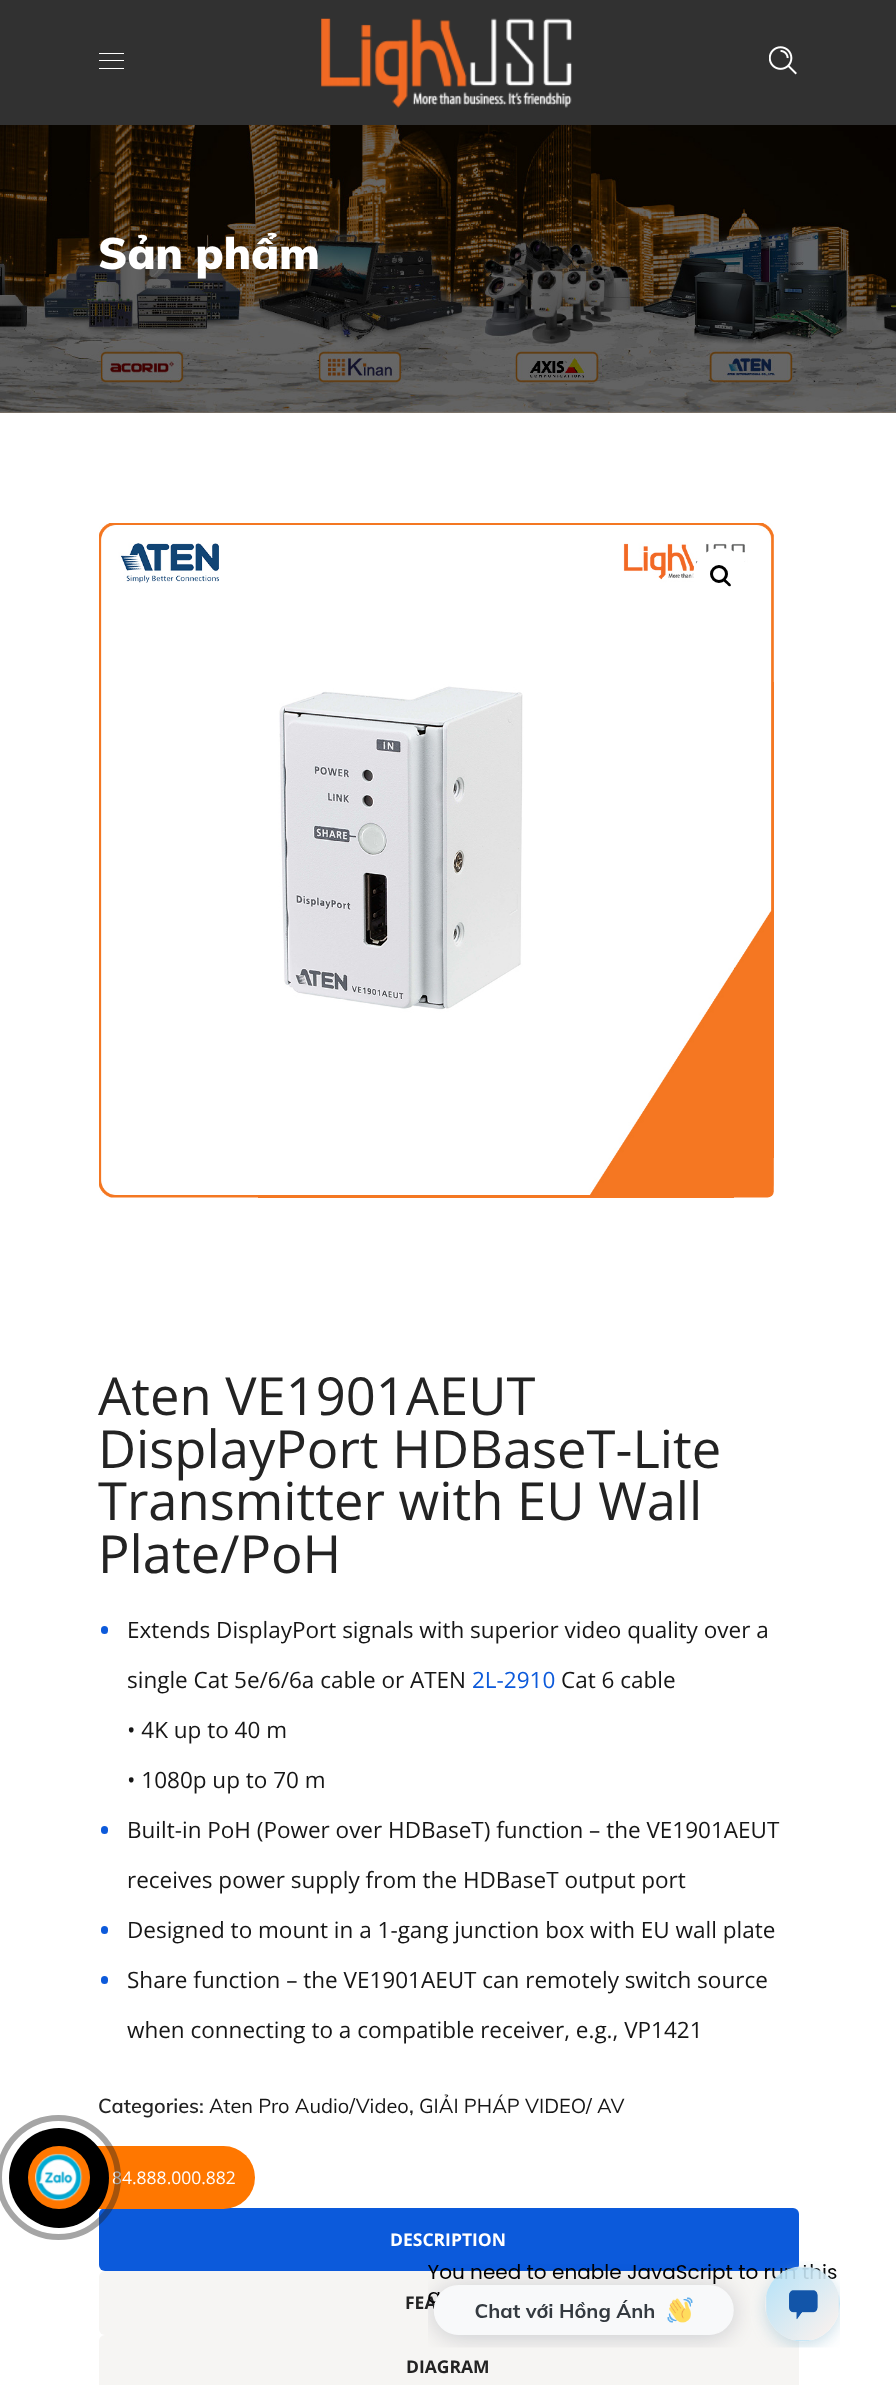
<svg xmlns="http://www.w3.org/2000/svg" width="896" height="2385">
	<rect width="100%" height="100%" fill="#FFFFFF" />
	<rect x="0" y="0" width="896" height="125" fill="#313131" />
	<rect x="99" y="53" width="25" height="1" fill="#FFFFFF" />
	<rect x="99" y="60" width="25" height="1" fill="#FFFFFF" />
	<rect x="99" y="68" width="25" height="1" fill="#FFFFFF" />
	<image x="321" y="18" width="251" height="90" href="assets/img1.png" />
	<image x="769" y="46" width="28" height="29" href="assets/img2.png" />
	<rect x="0" y="412" width="896" height="1" fill="#2D2D2D" />
	<image x="0" y="125" width="896" height="288" href="assets/img3.png" />
	<text x="98" y="269" font-family="Muli" font-size="43.75" font-weight="900" fill="#FFFFFF">Sản phẩm</text>
	<image x="773" y="533" width="1" height="654" href="assets/img5.png" />
	<image x="99" y="523" width="675" height="675" href="assets/img4.png" />
	<circle cx="721" cy="576" r="28" fill="#FFFFFF" />
	<circle cx="719" cy="574" r="7.5" fill="none" stroke="#000000" stroke-width="3" />
	<path d="M723.5 579C725 577.5 727 581 728 581.5C728.5 582.5 732 584.5 730.5 586C729 587.5 727 584 726 583.5C725 582.5 722 580.5 723.5 579Z" fill="#000000" />
	<g font-family="Open Sans" font-size="52.5" fill="#232323">
		<text x="98" y="1415">Aten VE1901AEUT</text>
		<text x="98" y="1468">DisplayPort HDBaseT-Lite</text>
		<text x="98" y="1520">Transmitter with EU Wall</text>
		<text x="98" y="1573">Plate/PoH</text>
	</g>
	<rect x="101" y="1626" width="7" height="8" rx="3.5" fill="#0C5ADB" />
	<g font-family="Open Sans" font-size="22.5" fill="#161616">
		<text x="127" y="1638">Extends DisplayPort signals with superior video quality over a</text>
		<text x="127" y="1688">single Cat 5e/6/6a cable or ATEN</text>
	</g>
	<text x="472" y="1688" font-family="Open Sans" font-size="22.5" fill="#0C5ADB">2L-2910</text>
	<g font-family="Open Sans" font-size="22.5" fill="#161616">
		<text x="561" y="1688">Cat 6 cable</text>
		<text x="127" y="1738">• 4K up to 40 m</text>
		<text x="127" y="1788">• 1080p up to 70 m</text>
	</g>
	<rect x="101" y="1826" width="7" height="8" rx="3.5" fill="#0C5ADB" />
	<g font-family="Open Sans" font-size="22.5" fill="#161616">
		<text x="127" y="1838">Built-in PoH (Power over HDBaseT) function – the VE1901AEUT</text>
		<text x="127" y="1888">receives power supply from the HDBaseT output port</text>
	</g>
	<rect x="101" y="1926" width="7" height="8" rx="3.5" fill="#0C5ADB" />
	<text x="127" y="1938" font-family="Open Sans" font-size="22.5" fill="#161616">Designed to mount in a 1-gang junction box with EU wall plate</text>
	<rect x="101" y="1976" width="7" height="8" rx="3.5" fill="#0C5ADB" />
	<g font-family="Open Sans" font-size="22.5" fill="#161616">
		<text x="127" y="1988">Share function – the VE1901AEUT can remotely switch source</text>
		<text x="127" y="2038">when connecting to a compatible receiver, e.g., VP1421</text>
	</g>
	<text x="98" y="2113" font-family="Muli" font-size="20" font-weight="600" fill="#232323">Categories:</text>
	<text x="209" y="2113" font-family="Muli" font-size="20" fill="#161616">Aten Pro Audio/Video</text>
	<text x="409" y="2113" font-family="Muli" font-size="20" font-weight="600" fill="#232323">,</text>
	<text x="419" y="2113" font-family="Muli" font-size="20" fill="#161616">GIẢI PHÁP VIDEO/ AV</text>
	<rect x="99" y="2208" width="700" height="63" rx="6" fill="#0C5ADB" />
	<text x="390" y="2246" font-family="Open Sans" font-size="17.5" font-weight="700" fill="#FFFFFF">DESCRIPTION</text>
	<rect x="99" y="2271" width="700" height="64" rx="6" fill="#F6F5F3" />
	<text x="405" y="2309" font-family="Open Sans" font-size="17.5" font-weight="700" fill="#232323">FEA</text>
	<rect x="99" y="2335" width="700" height="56" rx="6" fill="#F6F5F3" />
	<text x="406" y="2373" font-family="Open Sans" font-size="17.5" font-weight="700" fill="#232323">DIAGRAM</text>
	<rect x="28" y="2146" width="227" height="63" rx="31.5" fill="#FF7700" />
	<text x="112" y="2184" font-family="Open Sans" font-size="17.5" fill="#FFFFFF">84.888.000.882</text>
	<circle cx="58.5" cy="2177.5" r="59.5" fill="none" stroke="#1E1E1E" stroke-opacity="0.4" stroke-width="6" />
	<circle cx="59" cy="2178" r="50" fill="#000000" />
	<rect x="28" y="2146" width="62" height="63" rx="31" fill="#FF7700" />
	<image x="35" y="2153" width="48" height="49" href="assets/img6.png" />
	<image x="428" y="2261" width="412" height="87" href="assets/img7.png" />
</svg>
